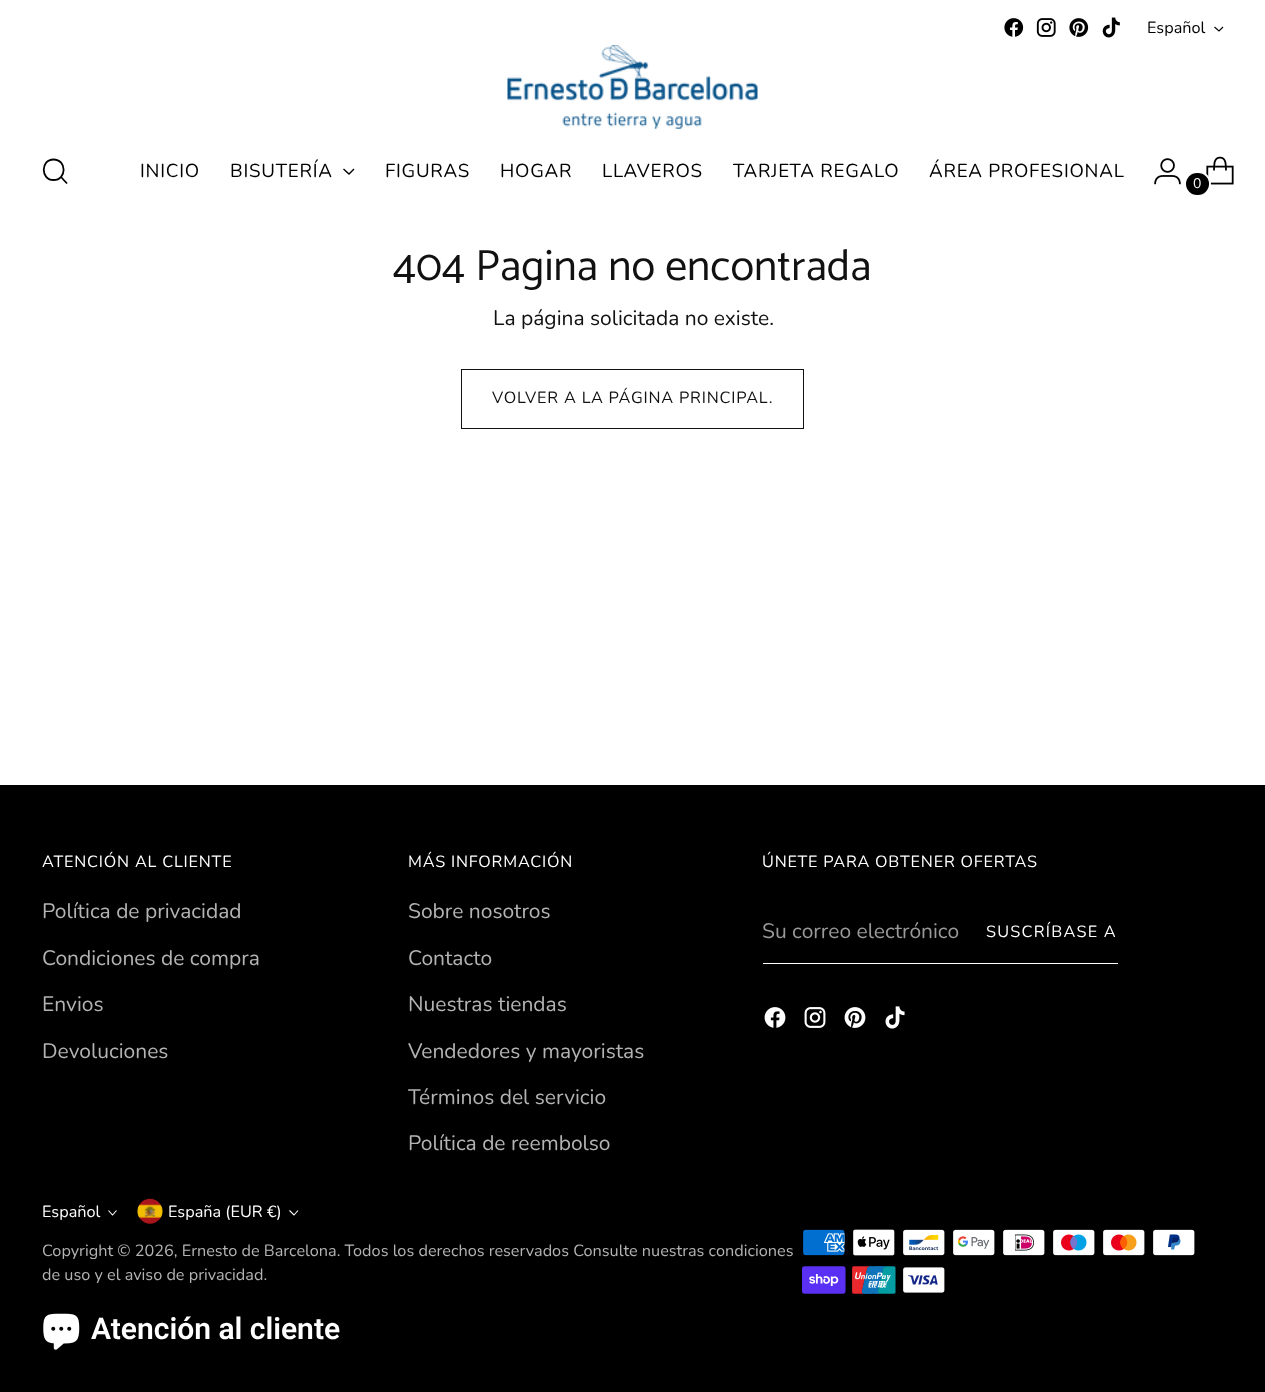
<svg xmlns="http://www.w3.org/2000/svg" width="1265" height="1392">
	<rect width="100%" height="100%" fill="#FFFFFF" />
	<image x="1004" y="18" width="20" height="19" href="assets/img1.png" />
	<image x="1036" y="18" width="20" height="19" href="assets/img2.png" />
	<image x="1069" y="18" width="20" height="19" href="assets/img3.png" />
	<image x="1102" y="17" width="18" height="21" href="assets/img4.png" />
	<text x="1147" y="33" font-family="Nunito" font-size="16.25" fill="#000000">Español</text>
	<path d="M1214.5 27L1219 31L1223 27" fill="none" stroke="#000000" stroke-width="1.1" />
	<image x="507" y="45" width="251" height="84" href="assets/img5.png" />
	<path d="M53.5 180C67 180 67 159.5 53.5 159.5C40.5 159.5 40.5 180 53.5 180Z" fill="none" stroke="#000000" stroke-width="1.8" stroke-linecap="round" />
	<path d="M61 177L67 183.5" fill="none" stroke="#000000" stroke-width="1.8" />
	<g font-family="Nunito" font-size="18.75" letter-spacing="0.75" fill="#000000">
		<text x="140" y="177">INICIO</text>
		<text x="230" y="177">BISUTERÍA</text>
	</g>
	<path d="M343.5 169L349 174L354 169" fill="none" stroke="#000000" stroke-width="1.4" />
	<g font-family="Nunito" font-size="18.75" letter-spacing="0.75" fill="#000000">
		<text x="385" y="177">FIGURAS</text>
		<text x="500" y="177">HOGAR</text>
		<text x="602" y="177">LLAVEROS</text>
		<text x="733" y="177">TARJETA REGALO</text>
		<text x="929" y="177">ÁREA PROFESIONAL</text>
	</g>
	<image x="1154" y="158" width="27" height="27" href="assets/img6.png" />
	<image x="1206" y="156" width="28" height="29" href="assets/img7.png" />
	<rect x="1186" y="172" width="24" height="25" rx="12" fill="none" stroke="#FFFFFF" stroke-width="2" />
	<rect x="1186" y="173" width="23" height="22" rx="11" fill="#000000" />
	<text x="1193" y="188" font-family="Nunito" font-size="14" fill="#FFFFFF">0</text>
	<text x="393" y="280" font-family="Catamaran" font-size="43.9" fill="#111111">404 Pagina no encontrada</text>
	<text x="493" y="325" font-family="Nunito" font-size="21" fill="#111111">La página solicitada no existe.</text>
	<rect x="461.5" y="369.5" width="342" height="59" fill="none" stroke="#111111" />
	<text x="492" y="403" font-family="Nunito" font-size="16.25" letter-spacing="0.8" fill="#111111">VOLVER A LA PÁGINA PRINCIPAL.</text>
	<rect x="0" y="785" width="1265" height="607" fill="#000000" />
	<text x="42" y="867" font-family="Nunito" font-size="16.25" letter-spacing="0.8" fill="#FFFFFF">ATENCIÓN AL CLIENTE</text>
	<g font-family="Nunito" font-size="21" fill="#B3B3B3">
		<text x="42" y="918">Política de privacidad</text>
		<text x="42" y="965">Condiciones de compra</text>
		<text x="42" y="1011">Envios</text>
		<text x="42" y="1058">Devoluciones</text>
	</g>
	<text x="408" y="867" font-family="Nunito" font-size="16.25" letter-spacing="0.8" fill="#FFFFFF">MÁS INFORMACIÓN</text>
	<g font-family="Nunito" font-size="21" fill="#B3B3B3">
		<text x="408" y="918">Sobre nosotros</text>
		<text x="408" y="965">Contacto</text>
		<text x="408" y="1011">Nuestras tiendas</text>
		<text x="408" y="1058">Vendedores y mayoristas</text>
		<text x="408" y="1104">Términos del servicio</text>
		<text x="408" y="1150">Política de reembolso</text>
	</g>
	<text x="762" y="867" font-family="Nunito" font-size="16.25" letter-spacing="0.8" fill="#FFFFFF">ÚNETE PARA OBTENER OFERTAS</text>
	<rect x="763" y="963" width="355" height="1" fill="#FFFFFF" />
	<text x="762" y="938" font-family="Nunito" font-size="21" fill="#999999">Su correo electrónico</text>
	<text x="986" y="937" font-family="Nunito" font-size="16.25" letter-spacing="1.25" fill="#FFFFFF">SUSCRÍBASE A</text>
	<image x="764" y="1007" width="22" height="21" href="assets/img8.png" />
	<image x="804" y="1007" width="22" height="21" href="assets/img9.png" />
	<image x="844" y="1007" width="22" height="21" href="assets/img10.png" />
	<image x="885" y="1006" width="20" height="23" href="assets/img11.png" />
	<text x="42" y="1217" font-family="Nunito" font-size="16.25" fill="#FFFFFF">Español</text>
	<path d="M108.5 1210.5L112.5 1215L116.5 1210.5" fill="none" stroke="#FFFFFF" stroke-width="1.1" />
	<image x="137" y="1198" width="26" height="26" href="assets/img12.png" />
	<text x="168" y="1217" font-family="Nunito" font-size="16.25" fill="#FFFFFF">España (EUR €)</text>
	<path d="M289.5 1210.5L294 1215L298 1210.5" fill="none" stroke="#FFFFFF" stroke-width="1.1" />
	<g font-family="Nunito" font-size="16.25" fill="#B3B3B3">
		<text x="42" y="1256">Copyright © 2026, Ernesto de Barcelona. Todos los derechos reservados Consulte nuestras condiciones</text>
		<text x="42" y="1280">de uso y el aviso de privacidad.</text>
	</g>
	<image x="803" y="1229" width="42" height="27" href="assets/img13.png" />
	<image x="853" y="1229" width="42" height="27" href="assets/img14.png" />
	<image x="903" y="1229" width="42" height="27" href="assets/img15.png" />
	<image x="953" y="1229" width="42" height="27" href="assets/img16.png" />
	<image x="1003" y="1229" width="42" height="27" href="assets/img17.png" />
	<image x="1053" y="1229" width="42" height="27" href="assets/img18.png" />
	<image x="1103" y="1229" width="42" height="27" href="assets/img19.png" />
	<image x="1153" y="1229" width="42" height="27" href="assets/img20.png" />
	<image x="802" y="1266" width="44" height="28" href="assets/img21.png" />
	<image x="852" y="1266" width="44" height="28" href="assets/img22.png" />
	<image x="903" y="1267" width="42" height="26" href="assets/img23.png" />
	<image x="43" y="1313" width="37" height="37" href="assets/img24.png" />
	<text x="91" y="1339" font-family="Roboto" font-size="30" font-weight="600" fill="#FFFFFF">Atención al cliente</text>
</svg>
